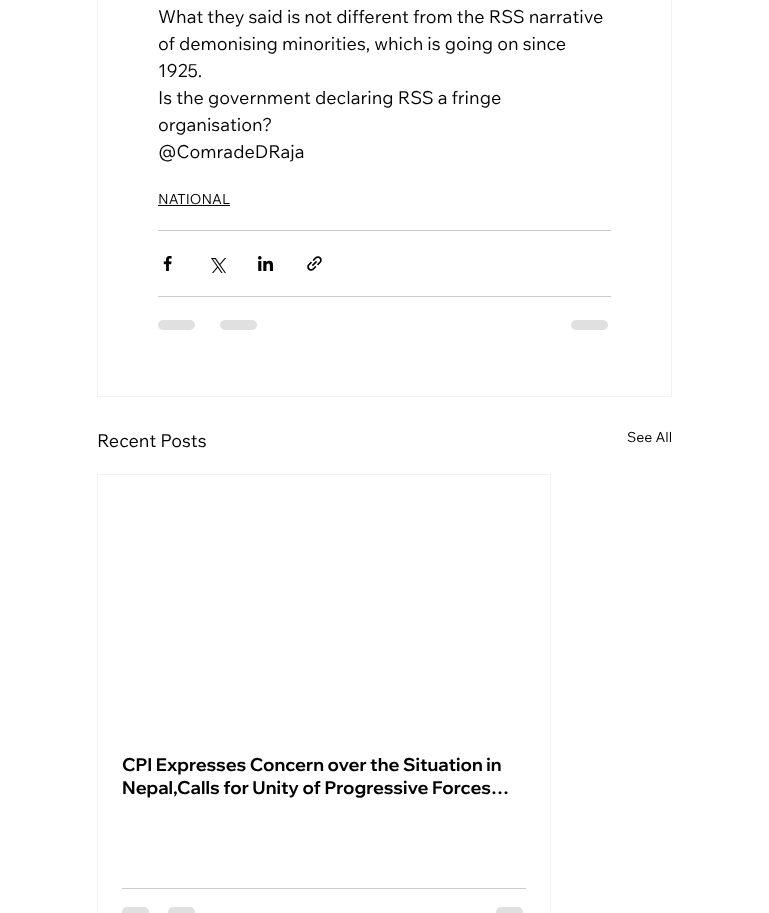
<svg xmlns="http://www.w3.org/2000/svg" width="769" height="913">
	<rect width="100%" height="100%" fill="#FFFFFF" />
	<rect x="97.5" y="-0.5" width="574" height="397" fill="none" stroke="#F2F2F2" />
	<g font-family="Wix Madefor Text" font-size="18" fill="#000000">
		<text x="158" y="23">What they said is not different from the RSS narrative</text>
		<text x="158" y="50">of demonising minorities, which is going on since</text>
		<text x="158" y="77">1925.</text>
		<text x="158" y="104">Is the government declaring RSS a fringe</text>
		<text x="158" y="131">organisation?</text>
		<text x="158" y="158">@ComradeDRaja</text>
	</g>
	<text x="158" y="204" font-family="Wix Madefor Text" font-size="14" fill="#000000">NATIONAL</text>
	<rect x="158" y="205" width="72" height="1" fill="#000000" />
	<rect x="158" y="230" width="453" height="1" fill="#CCCCCC" />
	<image x="163" y="256" width="9" height="15" href="assets/img1.png" />
	<image x="211" y="258" width="15" height="15" href="assets/img2.png" />
	<image x="258" y="256" width="15" height="15" href="assets/img3.png" />
	<image x="307" y="256" width="15" height="15" href="assets/img4.png" />
	<rect x="158" y="296" width="453" height="1" fill="#CCCCCC" />
	<rect x="158" y="320" width="37" height="10" rx="5" fill="#E0E0E0" />
	<rect x="220" y="320" width="37" height="10" rx="5" fill="#E0E0E0" />
	<rect x="571" y="320" width="37" height="10" rx="5" fill="#E0E0E0" />
	<text x="97" y="447" font-family="Wix Madefor Text" font-size="18" fill="#000000">Recent Posts</text>
	<text x="627" y="442" font-family="Wix Madefor Text" font-size="14" fill="#000000">See All</text>
	<rect x="97.5" y="474.5" width="453" height="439" fill="none" stroke="#F2F2F2" />
	<g font-family="Wix Madefor Display" font-size="18" font-weight="700" fill="#000000">
		<text x="122" y="771">CPI Expresses Concern over the Situation in</text>
		<text x="122" y="794">Nepal,Calls for Unity of Progressive Forces…</text>
	</g>
	<rect x="122" y="888" width="404" height="1" fill="#CCCCCC" />
	<rect x="122" y="907" width="27" height="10" rx="5" fill="#E0E0E0" />
	<rect x="168" y="907" width="27" height="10" rx="5" fill="#E0E0E0" />
	<rect x="496" y="907" width="27" height="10" rx="5" fill="#E0E0E0" />
</svg>
